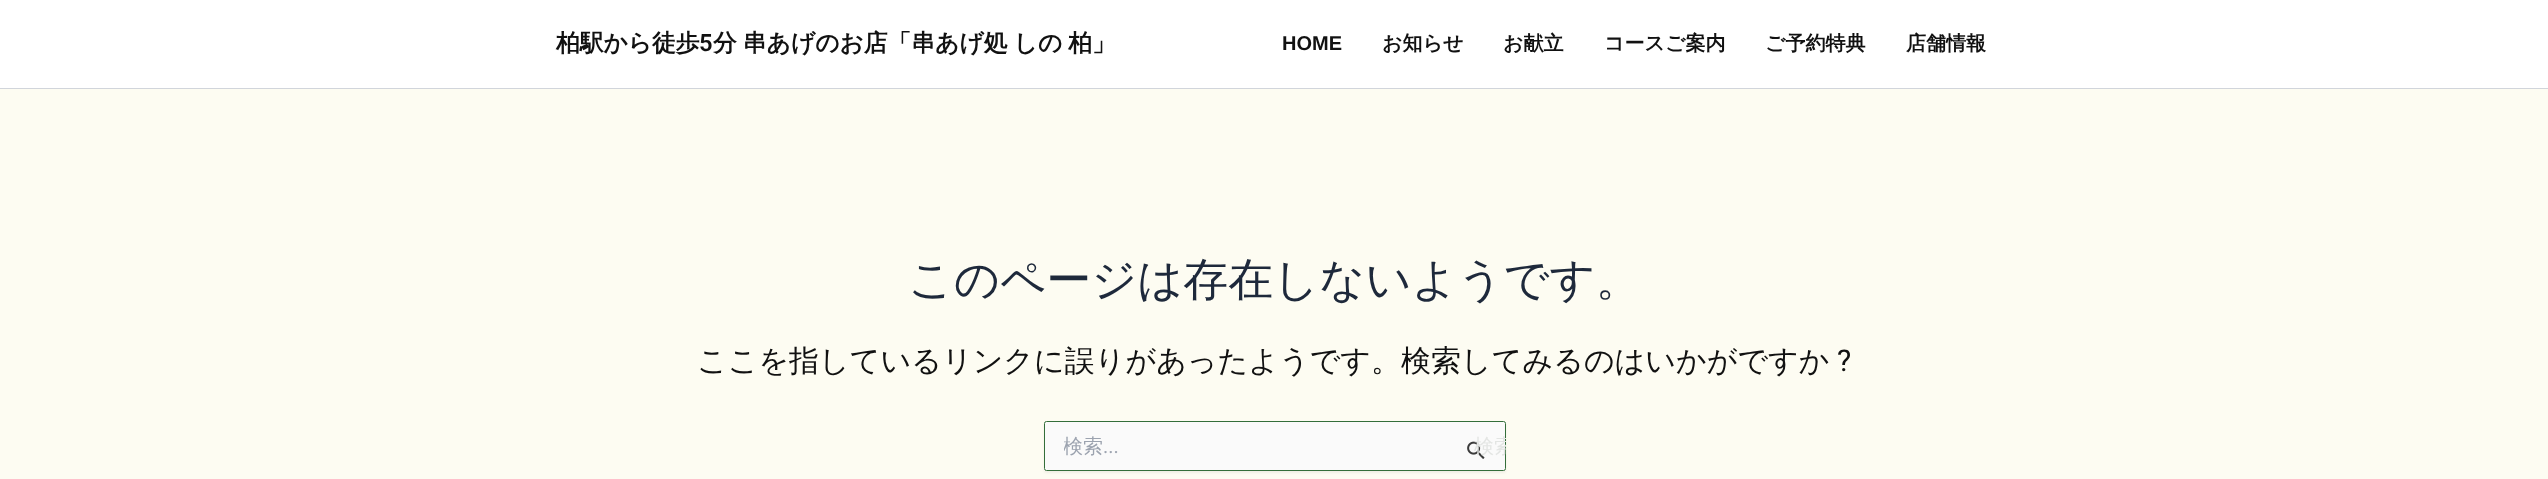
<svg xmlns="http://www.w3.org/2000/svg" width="2548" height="479">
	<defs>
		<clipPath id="clip1"><rect x="1064" y="434" width="380" height="26" /></clipPath>
		<clipPath id="clip2"><rect x="1450" y="421" width="56" height="53" rx="2.5" /></clipPath>
	</defs>
	<rect width="100%" height="100%" fill="#FDFCF2" />
	<rect x="0" y="0" width="2548" height="88" fill="#FFFFFF" />
	<rect x="0" y="88" width="2548" height="1" fill="#D1D5DB" />
	<text x="556" y="51" font-family="WenQuanYi Zen Hei" font-size="23.75" font-weight="700" fill="#111111">柏駅から徒歩</text>
	<text x="699" y="51" font-family="Roboto" font-size="23.75" font-weight="600" fill="#111111">5</text>
	<text x="713" y="51" word-spacing="-1" font-family="WenQuanYi Zen Hei" font-size="23.75" font-weight="700" fill="#111111">分 串あげのお店「串あげ処 しの 柏」</text>
	<text x="1282" y="50" font-family="Liberation Sans" font-size="20" font-weight="700" fill="#111111">HOME</text>
	<g font-family="WenQuanYi Zen Hei" font-size="20" font-weight="700" fill="#111111">
		<text x="1382" y="50">お知らせ</text>
		<text x="1503" y="50">お献立</text>
		<text x="1604" y="50">コースご案内</text>
		<text x="1765" y="50">ご予約特典</text>
		<text x="1906" y="50">店舗情報</text>
	</g>
	<text x="908" y="295" font-family="WenQuanYi Zen Hei" font-size="45" font-weight="500" fill="#1E293B">このページは存在しないようです。</text>
	<text x="697" y="371" font-family="WenQuanYi Zen Hei" font-size="30" font-weight="500" fill="#111111">ここを指しているリンクに誤りがあったようです。検索してみるのはいかがですか</text>
	<text x="1837" y="371" font-family="Roboto" font-size="30" fill="#111111">?</text>
	<rect x="1044" y="423" width="462" height="50" rx="2.5" fill="#000000" fill-opacity="0.05" filter="blur(1px)" />
	<rect x="1044.5" y="421.5" width="461" height="49" rx="2" fill="#FAFAFA" stroke="#346E3A" />
	<g clip-path="url(#clip1)">
		<text x="1063" y="453" font-family="WenQuanYi Zen Hei" font-size="20" font-weight="500" fill="#9CA3AF">検索</text>
	</g>
	<text x="1103" y="453" font-family="Roboto" font-size="20" fill="#9CA3AF">...</text>
	<image x="1467" y="441" width="18" height="18" href="assets/img1.png" />
	<g clip-path="url(#clip2)">
		<text x="1474" y="453" font-family="WenQuanYi Zen Hei" font-size="20" font-weight="500" fill="#E3E5E3">検索</text>
	</g>
</svg>
